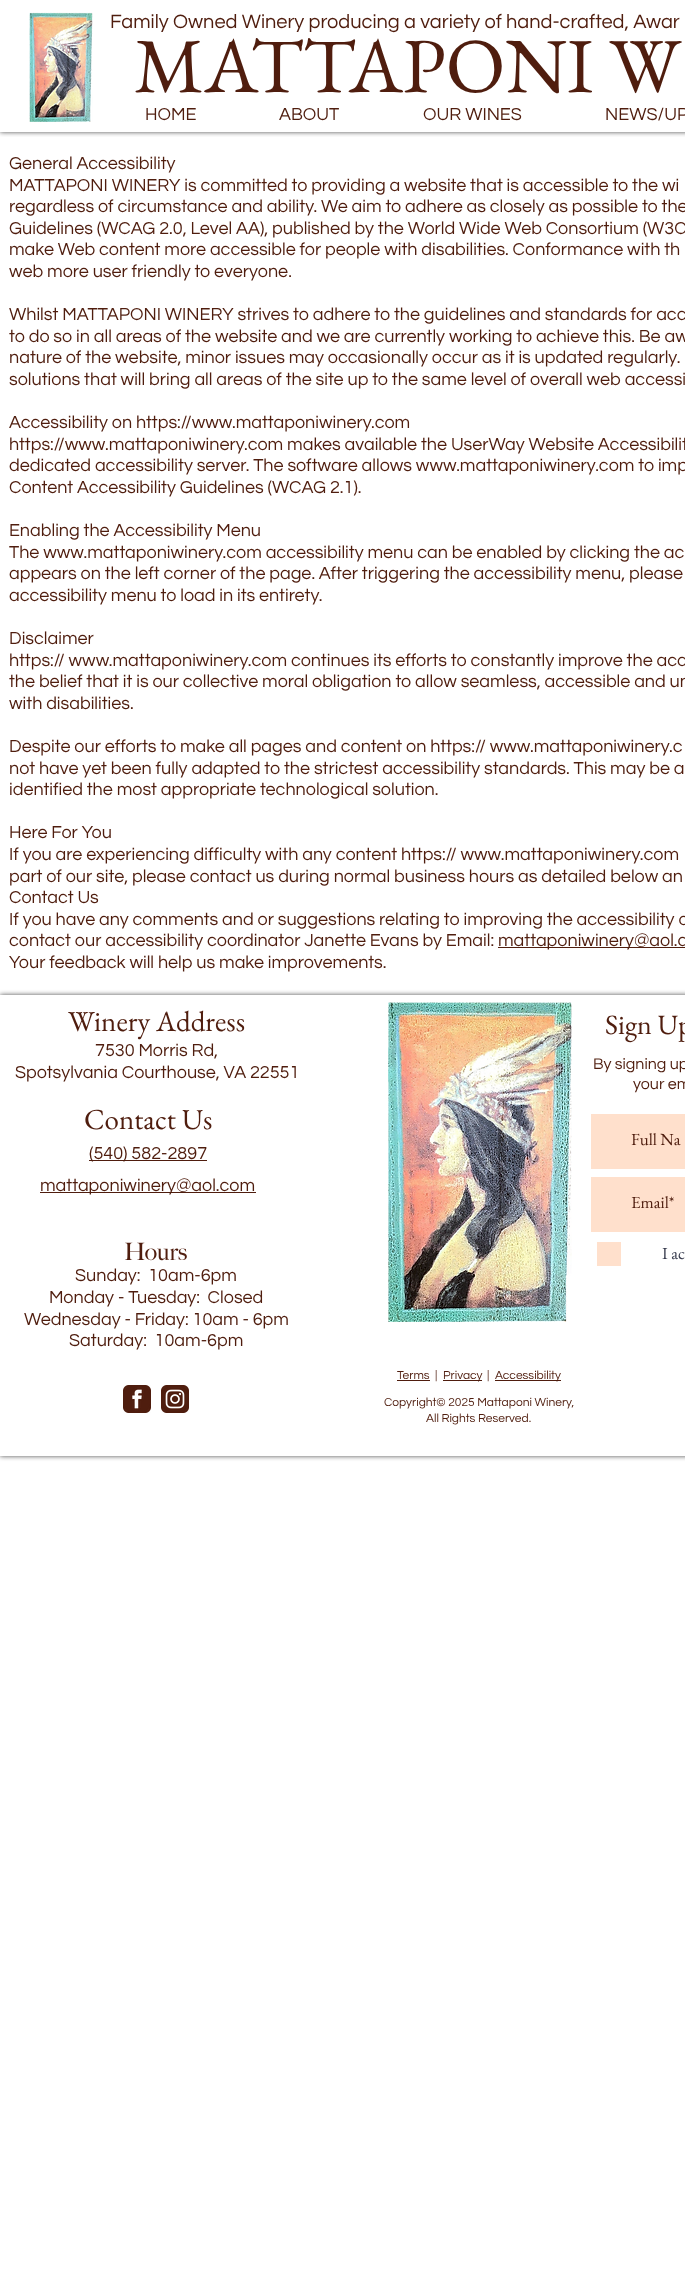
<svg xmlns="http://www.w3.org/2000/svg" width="685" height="2294">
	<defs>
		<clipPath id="clip1"><rect x="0" y="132" width="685" height="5" /></clipPath>
		<clipPath id="clip2"><path d="M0 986H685V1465H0ZM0 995H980V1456H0Z" clip-rule="evenodd" /></clipPath>
	</defs>
	<rect width="100%" height="100%" fill="#FFFFFF" />
	<g clip-path="url(#clip1)">
		<rect x="0" y="0" width="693" height="132" fill="#000000" fill-opacity="0.7" filter="blur(2.5px)" />
	</g>
	<image x="29" y="12" width="64" height="110" href="assets/img1.png" />
	<text x="110" y="28" font-family="Questrial" font-size="20" fill="#4F1D0E">Family Owned Winery producing a variety of hand-crafted, Awar</text>
	<text x="134" y="92" font-family="EB Garamond" font-size="78" fill="#4F1D0E">MATTAPONI W</text>
	<g font-family="Questrial" font-size="18" fill="#4F1D0E">
		<text x="145" y="120">HOME</text>
		<text x="279" y="120">ABOUT</text>
		<text x="423" y="120">OUR WINES</text>
		<text x="605" y="120">NEWS/UP</text>
		<text x="9" y="169">General Accessibility</text>
		<text x="9" y="191">MATTAPONI WINERY is committed to providing a website that is accessible to the wi</text>
		<text x="9" y="212">regardless of circumstance and ability. We aim to adhere as closely as possible to the</text>
		<text x="9" y="234">Guidelines (WCAG 2.0, Level AA), published by the World Wide Web Consortium (W3C</text>
		<text x="9" y="255">make Web content more accessible for people with disabilities. Conformance with th</text>
		<text x="9" y="277">web more user friendly to everyone.</text>
		<text x="9" y="320">Whilst MATTAPONI WINERY strives to adhere to the guidelines and standards for acc</text>
		<text x="9" y="342">to do so in all areas of the website and we are currently working to achieve this. Be aw</text>
		<text x="9" y="363">nature of the website, minor issues may occasionally occur as it is updated regularly.</text>
		<text x="9" y="385">solutions that will bring all areas of the site up to the same level of overall web accessi</text>
		<text x="9" y="428">Accessibility on https://www.mattaponiwinery.com</text>
		<text x="9" y="450">https://www.mattaponiwinery.com makes available the UserWay Website Accessibilit</text>
		<text x="9" y="471">dedicated accessibility server. The software allows www.mattaponiwinery.com to imp</text>
		<text x="9" y="493">Content Accessibility Guidelines (WCAG 2.1).</text>
		<text x="9" y="536">Enabling the Accessibility Menu</text>
		<text x="9" y="558">The www.mattaponiwinery.com accessibility menu can be enabled by clicking the ac</text>
		<text x="9" y="579">appears on the left corner of the page. After triggering the accessibility menu, please</text>
		<text x="9" y="601">accessibility menu to load in its entirety.</text>
		<text x="9" y="644">Disclaimer</text>
		<text x="9" y="666">https:// www.mattaponiwinery.com continues its efforts to constantly improve the acc</text>
		<text x="9" y="687">the belief that it is our collective moral obligation to allow seamless, accessible and un</text>
		<text x="9" y="709">with disabilities.</text>
		<text x="9" y="752">Despite our efforts to make all pages and content on https:// www.mattaponiwinery.c</text>
		<text x="9" y="774">not have yet been fully adapted to the strictest accessibility standards. This may be a</text>
		<text x="9" y="795">identified the most appropriate technological solution.</text>
		<text x="9" y="838">Here For You</text>
		<text x="9" y="860">If you are experiencing difficulty with any content https:// www.mattaponiwinery.com</text>
		<text x="9" y="882">part of our site, please contact us during normal business hours as detailed below an</text>
		<text x="9" y="903">Contact Us</text>
		<text x="9" y="925">If you have any comments and or suggestions relating to improving the accessibility o</text>
		<text x="9" y="946">contact our accessibility coordinator Janette Evans by Email:</text>
	</g>
	<rect x="498" y="947" width="187" height="1" fill="#4F1D0E" />
	<g font-family="Questrial" font-size="18" fill="#4F1D0E">
		<text x="498" y="946">mattaponiwinery@aol.c</text>
		<text x="9" y="968">Your feedback will help us make improvements.</text>
	</g>
	<g clip-path="url(#clip2)">
		<rect x="0" y="995" width="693" height="461" fill="#000000" fill-opacity="0.7" filter="blur(2.5px)" />
	</g>
	<text x="68" y="1031" font-family="EB Garamond" font-size="29" fill="#4F1D0E">Winery Address</text>
	<g font-family="Questrial" font-size="18" fill="#4F1D0E">
		<text x="95" y="1056">7530 Morris Rd,</text>
		<text x="15" y="1078">Spotsylvania Courthouse, VA 22551</text>
	</g>
	<image x="388" y="1002" width="184" height="320" href="assets/img2.png" />
	<text x="605" y="1034" font-family="EB Garamond" font-size="28" fill="#4F1D0E">Sign Up</text>
	<g font-family="Questrial" font-size="16" fill="#4F1D0E">
		<text x="593" y="1069">By signing up</text>
		<text x="633" y="1089">your em</text>
	</g>
	<text x="84" y="1129" font-family="EB Garamond" font-size="29" fill="#4F1D0E">Contact Us</text>
	<rect x="89" y="1160" width="118" height="1" fill="#4F1D0E" />
	<text x="89" y="1159" font-family="Questrial" font-size="18" fill="#4F1D0E">(540) 582-2897</text>
	<rect x="40" y="1192" width="216" height="1" fill="#4F1D0E" />
	<text x="40" y="1191" font-family="Questrial" font-size="18" fill="#4F1D0E">mattaponiwinery@aol.com</text>
	<rect x="591" y="1114" width="94" height="55" fill="#FFE0CC" />
	<text x="631" y="1145" font-family="EB Garamond" font-size="17" fill="#4F1D0E">Full Na</text>
	<rect x="591" y="1177" width="94" height="55" fill="#FFE0CC" />
	<text x="631" y="1208" font-family="EB Garamond" font-size="17" fill="#4F1D0E">Email*</text>
	<rect x="597" y="1242" width="24" height="24" fill="#FFE0CC" />
	<text x="662" y="1259" font-family="EB Garamond" font-size="17" fill="#373B4D">I ac</text>
	<text x="124" y="1260" font-family="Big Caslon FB" font-size="24" fill="#4F1D0E">Hours</text>
	<g font-family="Questrial" font-size="18" fill="#4F1D0E">
		<text x="75" y="1281" xml:space="preserve">Sunday:  10am-6pm</text>
		<text x="49" y="1303" xml:space="preserve">Monday - Tuesday:  Closed</text>
		<text x="24" y="1325">Wednesday - Friday: 10am - 6pm</text>
		<text x="69" y="1346" xml:space="preserve">Saturday:  10am-6pm</text>
	</g>
	<text x="397" y="1379" font-family="Questrial" font-size="12" fill="#4F1D0E">Terms</text>
	<rect x="397" y="1380" width="33" height="1" fill="#4F1D0E" />
	<text x="435" y="1379" font-family="Questrial" font-size="12" fill="#4F1D0E">|</text>
	<rect x="443" y="1380" width="39" height="1" fill="#4F1D0E" />
	<g font-family="Questrial" font-size="12" fill="#4F1D0E">
		<text x="443" y="1379">Privacy</text>
		<text x="487" y="1379">|</text>
	</g>
	<rect x="495" y="1380" width="66" height="1" fill="#4F1D0E" />
	<text x="495" y="1379" font-family="Questrial" font-size="12" fill="#4F1D0E">Accessibility</text>
	<image x="123" y="1385" width="28" height="28" href="assets/img3.png" />
	<image x="161" y="1385" width="28" height="28" href="assets/img4.png" />
	<g font-family="Questrial" font-size="12" fill="#4F1D0E">
		<text x="384" y="1406">Copyright© 2025 Mattaponi Winery,</text>
		<text x="426" y="1422">All Rights Reserved.</text>
	</g>
</svg>
